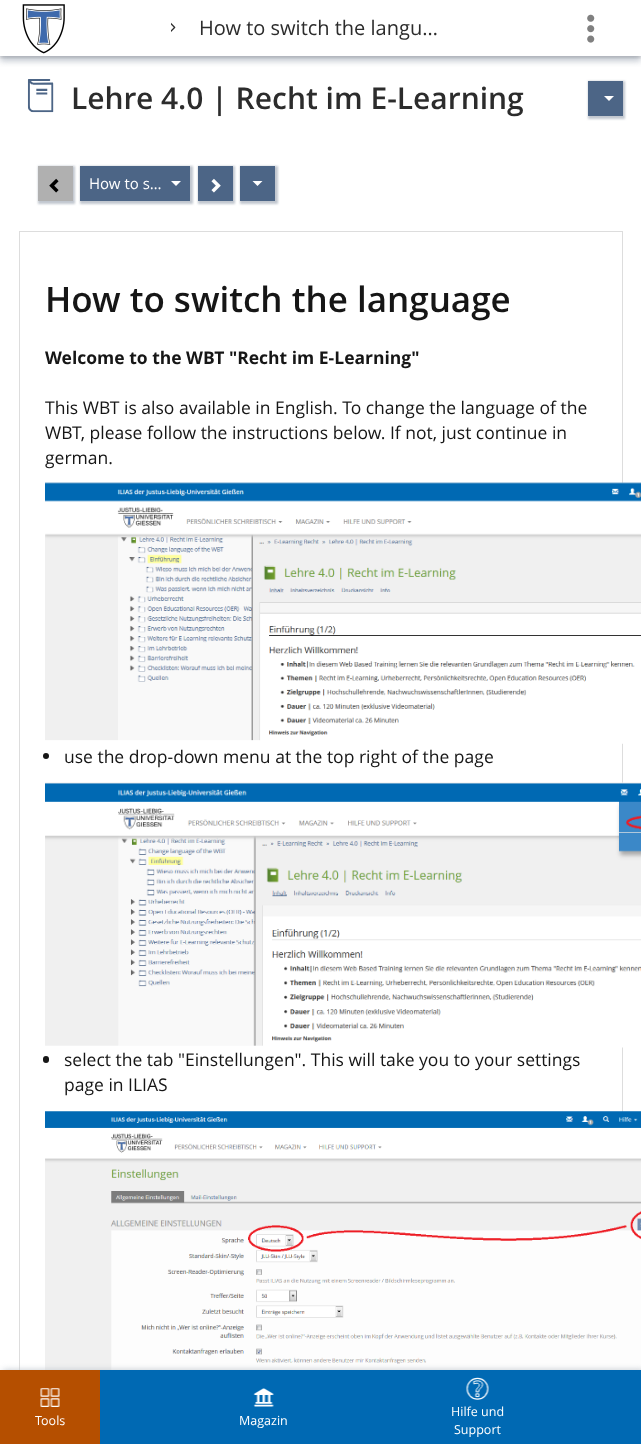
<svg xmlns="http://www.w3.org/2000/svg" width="641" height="1444">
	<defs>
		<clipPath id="clip1"><rect x="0" y="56" width="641" height="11" /></clipPath>
		<clipPath id="clip2"><rect x="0" y="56" width="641" height="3" /></clipPath>
	</defs>
	<rect width="100%" height="100%" fill="#FFFFFF" />
	<g clip-path="url(#clip1)">
		<rect x="0" y="5" width="641" height="56" fill="#C1C7CF" filter="blur(3px)" />
	</g>
	<g clip-path="url(#clip2)">
		<rect x="0" y="1" width="641" height="57" fill="#000000" fill-opacity="0.1" filter="blur(1px)" />
	</g>
	<image x="22" y="4" width="43" height="50" href="assets/img1.png" />
	<image x="171" y="22" width="5" height="10" href="assets/img2.png" />
	<text x="199" y="35" font-family="Open Sans" font-size="20" fill="#2C2C2C">How to switch the langu…</text>
	<image x="587" y="14" width="8" height="29" href="assets/img3.png" />
	<image x="27" y="79" width="27" height="34" href="assets/img4.png" />
	<text x="71" y="109" font-family="Open Sans" font-size="30" font-weight="600" fill="#2C2C2C">Lehre 4.0 | Recht im E-Learning</text>
	<rect x="588" y="81" width="37" height="38" fill="#C1C7CF" filter="blur(1px)" />
	<rect x="588" y="81" width="35" height="35" fill="#4C6586" />
	<path d="M604 96H614L609 101Z" fill="#FFFFFF" />
	<rect x="38" y="166" width="37" height="38" fill="#C1C7CF" filter="blur(1px)" />
	<rect x="38" y="166" width="35" height="35" fill="#B0B0B0" />
	<image x="49" y="178" width="10" height="15" href="assets/img5.png" />
	<rect x="80" y="166" width="113" height="38" fill="#C1C7CF" filter="blur(1px)" />
	<rect x="80" y="166" width="110" height="35" fill="#4C6586" />
	<text x="89" y="189" font-family="Open Sans" font-size="15" fill="#FFFFFF">How to s…</text>
	<path d="M171 181H181L176 186Z" fill="#FFFFFF" />
	<rect x="198" y="166" width="37" height="38" fill="#C1C7CF" filter="blur(1px)" />
	<rect x="198" y="166" width="35" height="35" fill="#4C6586" />
	<image x="211" y="178" width="10" height="15" href="assets/img6.png" />
	<rect x="240" y="166" width="38" height="38" fill="#C1C7CF" filter="blur(1px)" />
	<rect x="240" y="166" width="35" height="35" fill="#4C6586" />
	<path d="M252.5 181H262.5L257.5 186Z" fill="#FFFFFF" />
	<rect x="19.5" y="231.5" width="603" height="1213" fill="none" stroke="#DDDDDD" />
	<text x="45" y="312" font-family="Open Sans" font-size="35" font-weight="600" fill="#161616">How to switch the language</text>
	<text x="45" y="364" font-family="Open Sans" font-size="17.5" font-weight="700" fill="#161616">Welcome to the WBT "Recht im E-Learning"</text>
	<g font-family="Open Sans" font-size="17.5" fill="#161616">
		<text x="45" y="414">This WBT is also available in English. To change the language of the</text>
		<text x="45" y="439">WBT, please follow the instructions below. If not, just continue in</text>
		<text x="45" y="464">german.</text>
	</g>
	<image x="45" y="482" width="596" height="262" href="assets/img7.png" />
	<circle cx="46" cy="756" r="3" fill="#161616" />
	<text x="64" y="763" font-family="Open Sans" font-size="17.5" fill="#161616">use the drop-down menu at the top right of the page</text>
	<image x="45" y="782" width="596" height="266" href="assets/img8.png" />
	<rect x="43" y="1056" width="6" height="7" rx="3" fill="#161616" />
	<g font-family="Open Sans" font-size="17.5" fill="#161616">
		<text x="64" y="1066">select the tab "Einstellungen". This will take you to your settings</text>
		<text x="64" y="1091">page in ILIAS</text>
	</g>
	<image x="45" y="1111" width="596" height="259" href="assets/img9.png" />
	<rect x="3" y="1370" width="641" height="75" fill="#C1C7CF" filter="blur(3px)" />
	<rect x="100" y="1370" width="541" height="74" fill="#0069B3" />
	<rect x="0" y="1370" width="100" height="74" fill="#B54F00" />
	<image x="40" y="1388" width="20" height="19" href="assets/img10.png" />
	<text x="35" y="1425" font-family="Open Sans" font-size="12.5" fill="#FFFFFF">Tools</text>
	<image x="253" y="1388" width="21" height="19" href="assets/img11.png" />
	<text x="239" y="1425" font-family="Open Sans" font-size="12.5" fill="#FFFFFF">Magazin</text>
	<image x="466" y="1377" width="23" height="23" href="assets/img12.png" />
	<g font-family="Open Sans" font-size="12.5" fill="#FFFFFF">
		<text x="451" y="1416">Hilfe und</text>
		<text x="454" y="1434">Support</text>
	</g>
</svg>
